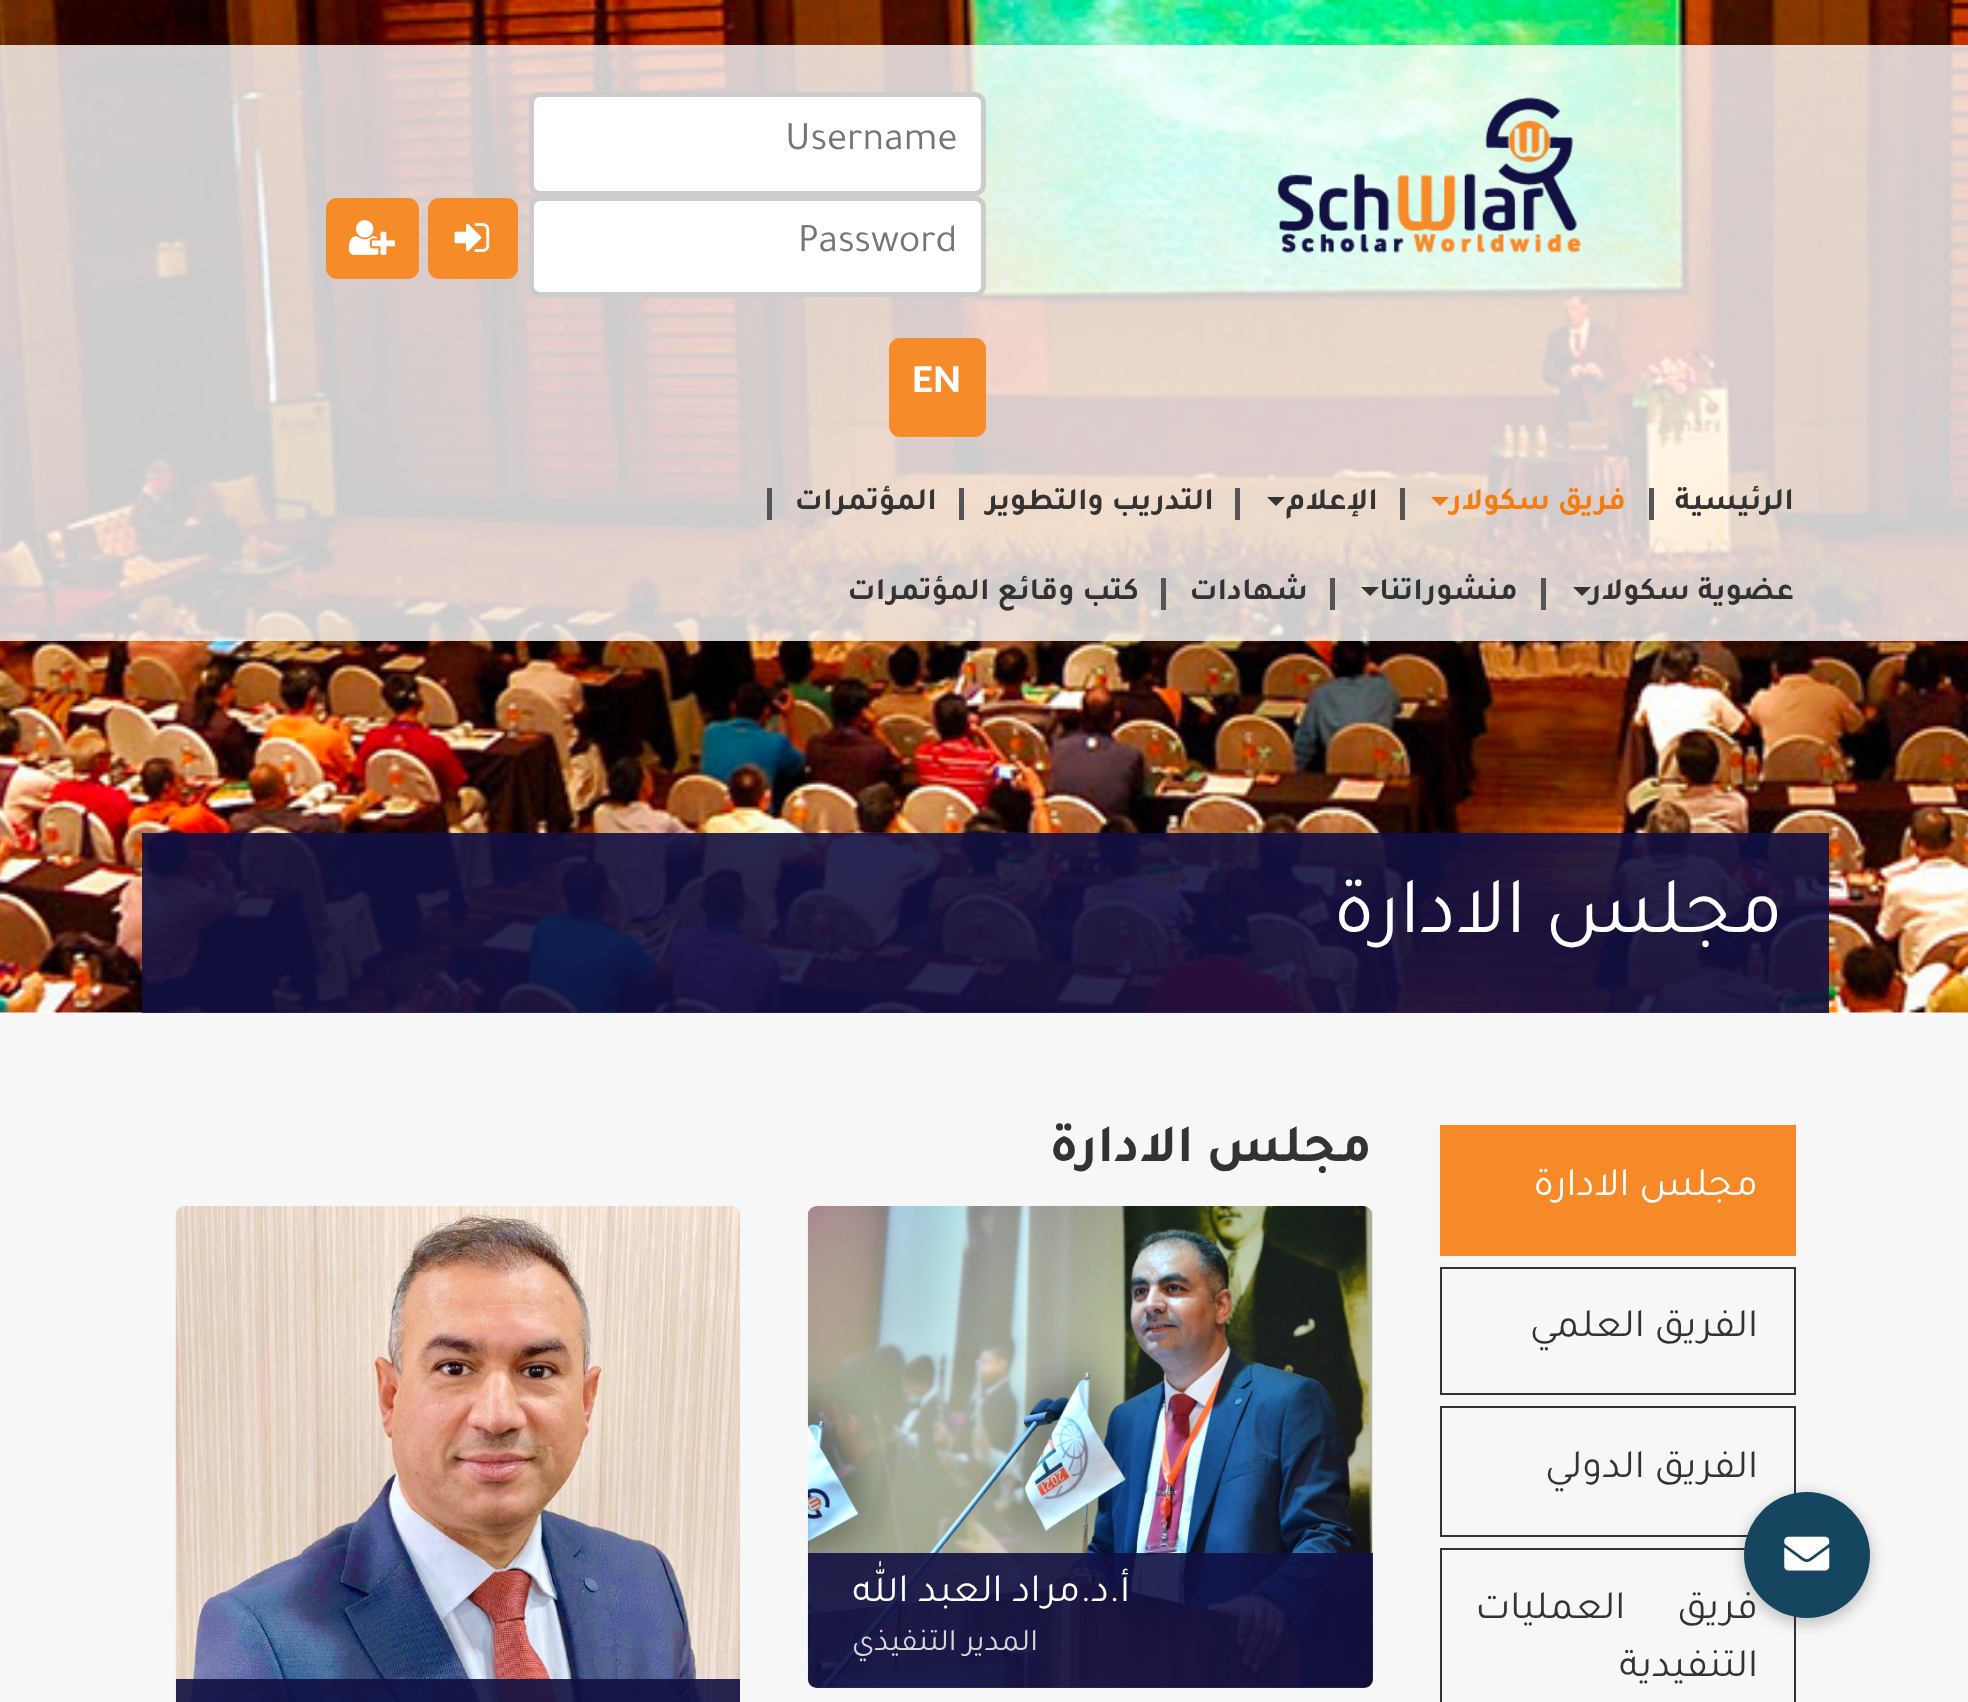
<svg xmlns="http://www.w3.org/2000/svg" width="1968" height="1702">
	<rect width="100%" height="100%" fill="#FFFFFF" />
	<image x="0" y="0" width="1968" height="1013" href="assets/img4.png" />
	<rect x="0" y="45" width="1968" height="596" fill="#FFFFFF" fill-opacity="0.8" />
	<image x="1277" y="97" width="304" height="156" href="assets/img1.png" />
	<rect x="531.5" y="94.5" width="452" height="99" rx="8.5" fill="#FFFFFF" stroke="#CCCCCC" stroke-width="5" />
	<text x="785" y="149" font-family="Tajawal" font-size="40.5" fill="#757575">Username</text>
	<rect x="531.5" y="198.5" width="452" height="96" rx="8.5" fill="#FFFFFF" stroke="#CCCCCC" stroke-width="5" />
	<text x="798" y="251" font-family="Tajawal" font-size="40.5" fill="#757575">Password</text>
	<rect x="430.5" y="200.5" width="85" height="76" rx="8.5" fill="#F68B2A" stroke="#F68B2A" stroke-width="5" />
	<image x="454" y="223" width="36" height="29" href="assets/img2.png" />
	<rect x="328.5" y="200.5" width="88" height="76" rx="8.5" fill="#F68B2A" stroke="#F68B2A" stroke-width="5" />
	<image x="348" y="220" width="48" height="35" href="assets/img3.png" />
	<rect x="891.5" y="340.5" width="92" height="94" rx="8.5" fill="#F68B2A" stroke="#F68B2A" stroke-width="5" />
	<text x="912" y="392" font-family="Tajawal" font-size="40.5" font-weight="700" fill="#FFFFFF">EN</text>
	<text x="1794" y="509" font-family="Tajawal" font-size="31.5" font-weight="700" direction="rtl" fill="#333333">الرئيسية</text>
	<rect x="1649" y="488" width="5" height="32" fill="#555555" />
	<text x="1626" y="509" font-family="Tajawal" font-size="31.5" font-weight="700" direction="rtl" fill="#F37D10">فريق سكولار</text>
	<path d="M1431 497H1449L1440 506Z" fill="#F37D10" />
	<rect x="1400" y="488" width="5" height="32" fill="#555555" />
	<text x="1378" y="509" font-family="Tajawal" font-size="31.5" font-weight="700" direction="rtl" fill="#333333">الإعلام</text>
	<path d="M1267 497H1285L1276 506Z" fill="#333333" />
	<rect x="1235" y="488" width="5" height="32" fill="#555555" />
	<text x="1214" y="509" font-family="Tajawal" font-size="31.5" font-weight="700" direction="rtl" fill="#333333">التدريب والتطوير</text>
	<rect x="959" y="488" width="5" height="32" fill="#555555" />
	<text x="937" y="509" font-family="Tajawal" font-size="31.5" font-weight="700" direction="rtl" fill="#333333">المؤتمرات</text>
	<rect x="767" y="488" width="5" height="32" fill="#555555" />
	<text x="1794" y="599" font-family="Tajawal" font-size="31.5" font-weight="700" direction="rtl" fill="#333333">عضوية سكولار</text>
	<path d="M1573 587H1591L1582 596Z" fill="#333333" />
	<rect x="1541" y="578" width="5" height="32" fill="#555555" />
	<text x="1518" y="599" font-family="Tajawal" font-size="31.5" font-weight="700" direction="rtl" fill="#333333">منشوراتنا</text>
	<path d="M1361 587H1379L1370 596Z" fill="#333333" />
	<rect x="1330" y="578" width="5" height="32" fill="#555555" />
	<text x="1308" y="599" font-family="Tajawal" font-size="31.5" font-weight="700" direction="rtl" fill="#333333">شهادات</text>
	<rect x="1161" y="578" width="5" height="32" fill="#555555" />
	<text x="1139" y="599" font-family="Tajawal" font-size="31.5" font-weight="700" direction="rtl" fill="#333333">كتب وقائع المؤتمرات</text>
	<rect x="142" y="833" width="1687" height="180" fill="#110F41" fill-opacity="0.9" />
	<text x="1783" y="932" font-family="Tajawal" font-size="81" direction="rtl" fill="#FFFFFF">مجلس الادارة</text>
	<rect x="0" y="1013" width="1968" height="689" fill="#F7F7F7" />
	<rect x="1441" y="1407" width="354" height="129" fill="none" stroke="#333333" stroke-width="2" />
	<rect x="1441" y="1549" width="354" height="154" fill="none" stroke="#333333" stroke-width="2" />
	<rect x="1742" y="1494" width="130" height="131" rx="65" fill="#000000" fill-opacity="0.2" filter="blur(7px)" />
	<circle cx="1807" cy="1555" r="63" fill="#16465F" />
	<image x="1784" y="1536" width="46" height="35" href="assets/img5.png" />
	<rect x="1440" y="1125" width="356" height="131" fill="#F68A29" />
	<text x="1758" y="1195" font-family="Tajawal" font-size="40.5" direction="rtl" fill="#FFFFFF">مجلس الادارة</text>
	<rect x="1441" y="1268" width="354" height="126" fill="none" stroke="#333333" stroke-width="2" />
	<g font-family="Tajawal" font-size="40.5" direction="rtl" fill="#333333">
		<text x="1758" y="1336">الفريق العلمي</text>
		<text x="1758" y="1477">الفريق الدولي</text>
		<text x="1758" y="1618" word-spacing="42">فريق العمليات</text>
		<text x="1758" y="1676">التنفيدية</text>
	</g>
	<text x="1372" y="1161" font-family="Tajawal" font-size="54" font-weight="700" direction="rtl" fill="#333333">مجلس الادارة</text>
	<image x="807" y="1206" width="566" height="482" href="assets/img6.png" />
	<path d="M808 1553H1373V1679C1373 1684 1369 1688 1364 1688H817C812 1688 808 1684 808 1679Z" fill="#110F41" fill-opacity="0.9" />
	<text x="1130" y="1601" font-family="Tajawal" font-size="40.5" direction="rtl" fill="#FFFFFF">أ.د.مراد العبد الله</text>
	<text x="1038" y="1650" font-family="Tajawal" font-size="31.5" direction="rtl" fill="#D8D8D8">المدير التنفيذي</text>
	<image x="175" y="1206" width="565" height="496" href="assets/img7.png" />
	<rect x="176" y="1679" width="564" height="23" fill="#110F41" fill-opacity="0.9" />
</svg>
